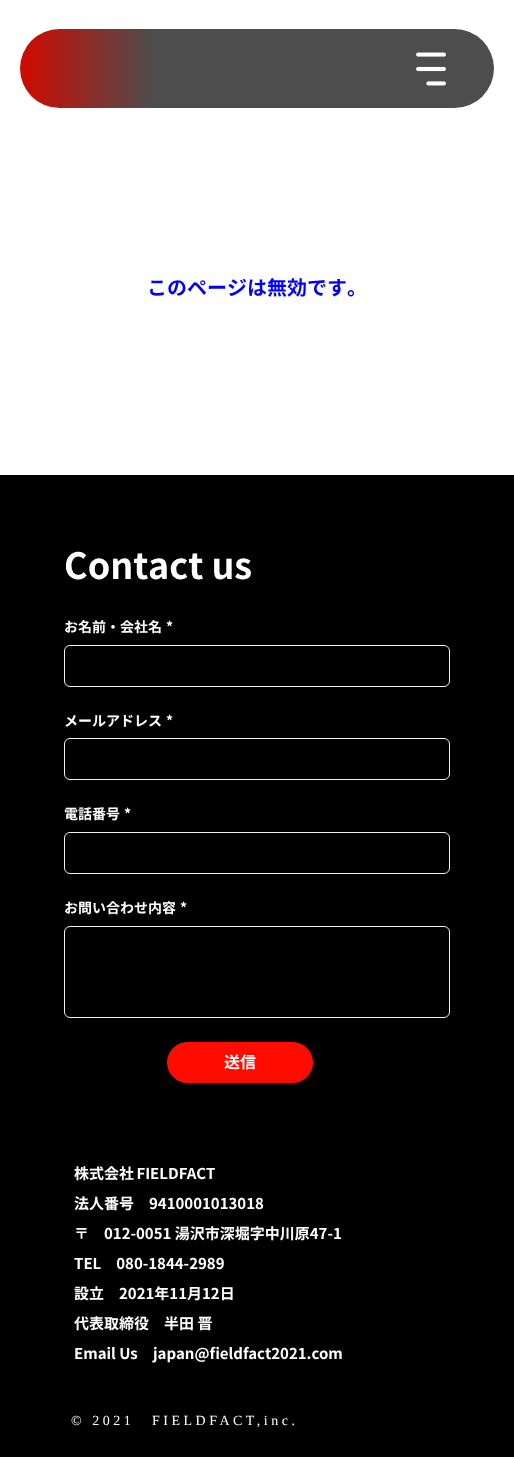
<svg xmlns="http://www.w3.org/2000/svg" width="514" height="1458">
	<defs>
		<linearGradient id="g1" gradientUnits="userSpaceOnUse" x1="20" y1="69" x2="494" y2="68"><stop offset="0" stop-color="#D00900" /><stop offset="0.28" stop-color="#4D4D4D" /></linearGradient>
	</defs>
	<rect width="100%" height="100%" fill="#FFFFFF" />
	<rect x="20" y="29" width="474" height="79" rx="39.5" fill="url(#g1)" />
	<image x="416" y="52" width="30" height="34" href="assets/img1.png" />
	<text x="147" y="295" font-family="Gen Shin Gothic" font-size="20" font-weight="700" fill="#0000FF">このページは無効です。</text>
	<rect x="0" y="475" width="514" height="982" fill="#000000" />
	<text x="64" y="579" font-family="Gen Shin Gothic" font-size="36" font-weight="700" fill="#FFFFFF">Contact us</text>
	<g font-family="Gen Shin Gothic" font-size="14" font-weight="700" fill="#FFFFFF">
		<text x="64" y="632">お名前・会社名</text>
		<text x="166" y="632">*</text>
	</g>
	<rect x="64.5" y="645.5" width="385" height="41" rx="5.5" fill="none" stroke="#F2F2F2" />
	<g font-family="Gen Shin Gothic" font-size="14" font-weight="700" fill="#FFFFFF">
		<text x="64" y="726">メールアドレス</text>
		<text x="166" y="726">*</text>
	</g>
	<rect x="64.5" y="738.5" width="385" height="41" rx="5.5" fill="none" stroke="#F2F2F2" />
	<g font-family="Gen Shin Gothic" font-size="14" font-weight="700" fill="#FFFFFF">
		<text x="64" y="819">電話番号</text>
		<text x="124" y="819">*</text>
	</g>
	<rect x="64.5" y="832.5" width="385" height="41" rx="5.5" fill="none" stroke="#F2F2F2" />
	<g font-family="Gen Shin Gothic" font-size="14" font-weight="700" fill="#FFFFFF">
		<text x="64" y="913">お問い合わせ内容</text>
		<text x="180" y="913">*</text>
	</g>
	<rect x="64.5" y="926.5" width="385" height="91" rx="5.5" fill="none" stroke="#F2F2F2" />
	<rect x="167" y="1042" width="146" height="41" rx="20.5" fill="#FF0B00" />
	<text x="224" y="1068" font-family="Gen Shin Gothic" font-size="16" font-weight="700" fill="#FFFFFF">送信</text>
	<g font-family="Gen Shin Gothic" font-size="15" font-weight="700" fill="#FFFFFF">
		<text x="74" y="1179" word-spacing="-1">株式会社 FIELDFACT</text>
		<text x="74" y="1209">法人番号　9410001013018</text>
		<text x="74" y="1239">〒　012-0051 湯沢市深堀字中川原47-1</text>
		<text x="74" y="1269">TEL　080-1844-2989</text>
		<text x="74" y="1299">設立　2021年11月12日</text>
		<text x="74" y="1329">代表取締役　半田 晋</text>
		<text x="74" y="1359">Email Us</text>
		<text x="153" y="1359">japan@fieldfact2021.com</text>
	</g>
	<g font-family="Liberation Serif" font-size="14" letter-spacing="3.5" fill="#FFFFFF">
		<text x="71" y="1425">© 2021</text>
		<text x="152" y="1425">FIELDFACT,inc.</text>
	</g>
</svg>
